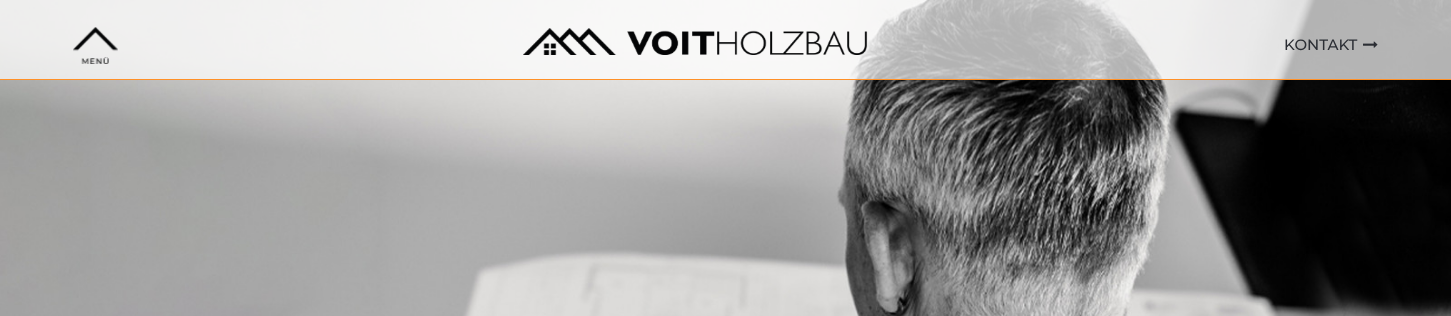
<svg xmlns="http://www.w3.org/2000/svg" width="1451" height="316">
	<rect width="100%" height="100%" fill="#FFFFFF" />
	<image x="0" y="0" width="1451" height="316" href="assets/img1.png" />
	<rect x="0" y="0" width="1451" height="79" fill="#FFFFFF" fill-opacity="0.7" />
	<rect x="0" y="79" width="1451" height="1" fill="#FF9027" />
	<image x="73" y="27" width="45" height="37" href="assets/img2.png" />
	<image x="523" y="28" width="345" height="27" href="assets/img3.png" />
	<text x="1284" y="50" font-family="Montserrat" font-size="15" font-weight="100" fill="#2B2E34">KONTAKT</text>
	<image x="1363" y="41" width="15" height="7" href="assets/img4.png" />
</svg>
